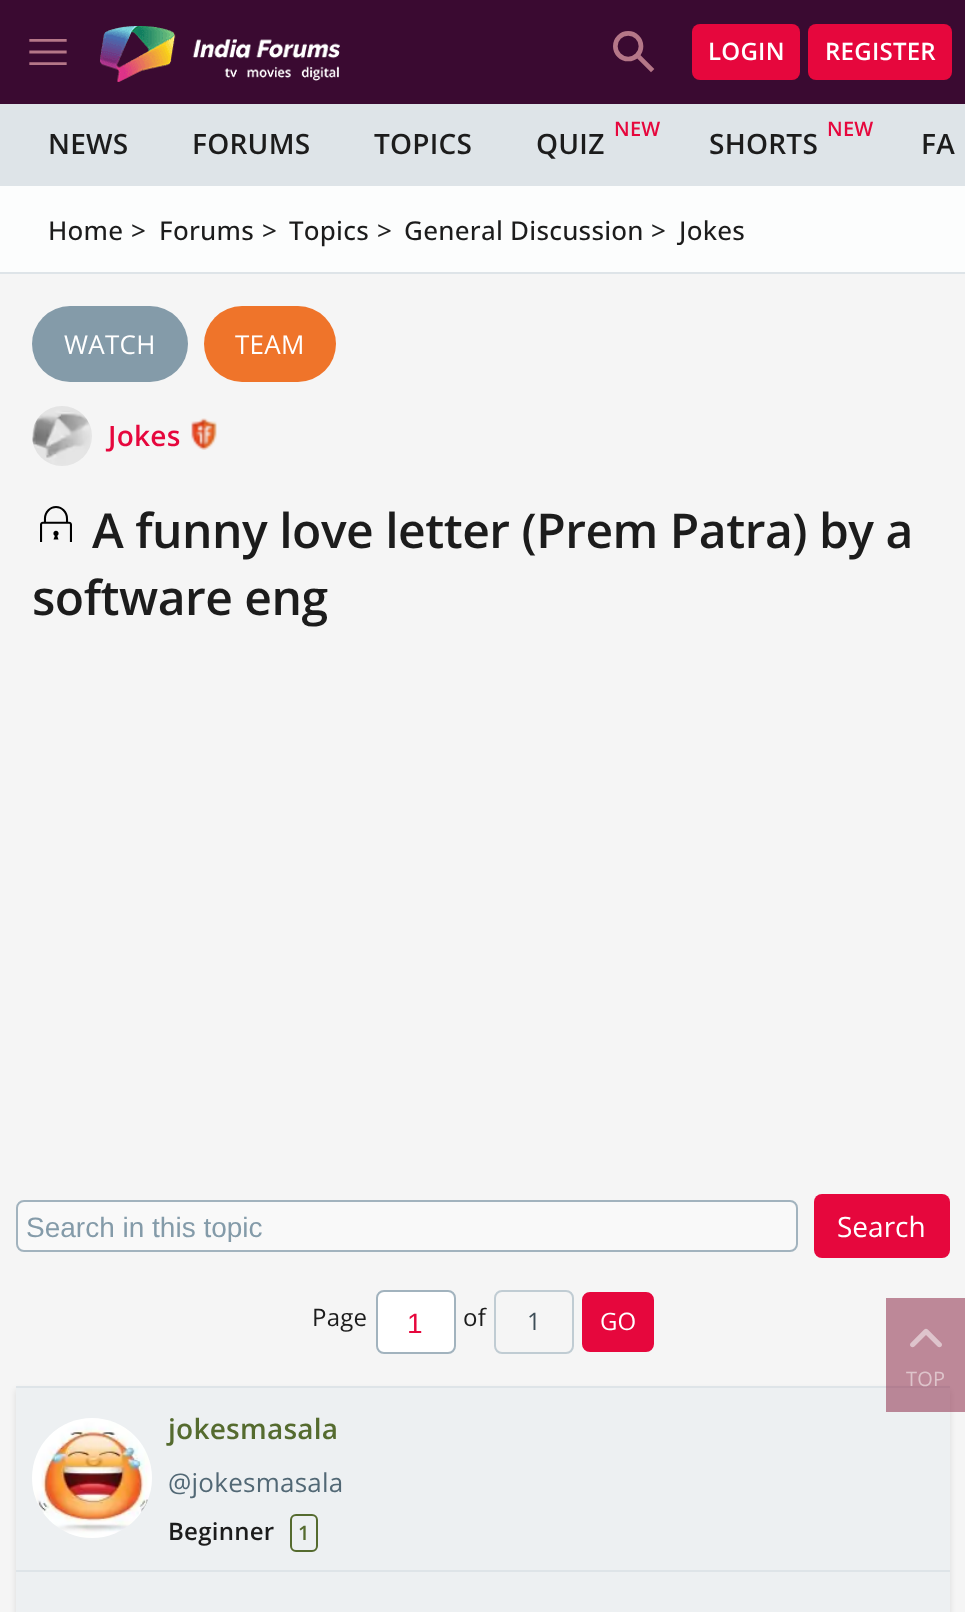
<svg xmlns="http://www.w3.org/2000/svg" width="965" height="1612">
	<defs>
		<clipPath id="clip1"><rect x="26" y="1210" width="762" height="32" /></clipPath>
	</defs>
	<rect width="100%" height="100%" fill="#F5F5F5" />
	<rect x="0" y="0" width="965" height="104" fill="#3A0A31" />
	<image x="29" y="39" width="38" height="26" href="assets/img1.png" />
	<image x="100" y="26" width="240" height="56" href="assets/img2.png" />
	<image x="613" y="31" width="42" height="42" href="assets/img3.png" />
	<rect x="692" y="24" width="108" height="56" rx="8" fill="#E6073D" />
	<text x="708" y="60" font-family="Open Sans" font-size="24" font-weight="600" letter-spacing="0.25" fill="#FFFFFF">LOGIN</text>
	<rect x="808" y="24" width="144" height="56" rx="8" fill="#E6073D" />
	<text x="825" y="60" font-family="Open Sans" font-size="24" font-weight="600" letter-spacing="0.25" fill="#FFFFFF">REGISTER</text>
	<rect x="0" y="104" width="965" height="82" fill="#DEE4E8" />
	<g font-family="Open Sans" font-size="28" font-weight="600" letter-spacing="0.25" fill="#1C1C1C">
		<text x="48" y="154">NEWS</text>
		<text x="192" y="154">FORUMS</text>
		<text x="374" y="154">TOPICS</text>
	</g>
	<text x="614" y="136" font-family="Open Sans" font-size="20" font-weight="600" letter-spacing="0.25" fill="#E6073D">NEW</text>
	<text x="536" y="154" font-family="Open Sans" font-size="28" font-weight="600" letter-spacing="0.25" fill="#1C1C1C">QUIZ</text>
	<text x="827" y="136" font-family="Open Sans" font-size="20" font-weight="600" letter-spacing="0.25" fill="#E6073D">NEW</text>
	<g font-family="Open Sans" font-size="28" font-weight="600" letter-spacing="0.25" fill="#1C1C1C">
		<text x="709" y="154">SHORTS</text>
		<text x="921" y="154">FA</text>
	</g>
	<rect x="0" y="186" width="965" height="86" fill="#FCFDFD" />
	<rect x="0" y="272" width="965" height="2" fill="#DEE4E8" />
	<text x="48" y="240" font-family="Open Sans" font-size="26" font-weight="500" letter-spacing="0.25" fill="#1C1C1C">Home</text>
	<text x="131" y="240" font-family="Open Sans" font-size="26" font-weight="500" letter-spacing="0.25" fill="#222222">&gt;</text>
	<text x="159" y="240" font-family="Open Sans" font-size="26" font-weight="500" letter-spacing="0.25" fill="#1C1C1C">Forums</text>
	<text x="262" y="240" font-family="Open Sans" font-size="26" font-weight="500" letter-spacing="0.25" fill="#222222">&gt;</text>
	<text x="289" y="240" font-family="Open Sans" font-size="26" font-weight="500" letter-spacing="0.25" fill="#1C1C1C">Topics</text>
	<text x="377" y="240" font-family="Open Sans" font-size="26" font-weight="500" letter-spacing="0.25" fill="#222222">&gt;</text>
	<text x="404" y="240" font-family="Open Sans" font-size="26" font-weight="500" letter-spacing="0.25" fill="#1C1C1C">General Discussion</text>
	<text x="651" y="240" font-family="Open Sans" font-size="26" font-weight="500" letter-spacing="0.25" fill="#222222">&gt;</text>
	<text x="679" y="240" font-family="Open Sans" font-size="26" font-weight="500" letter-spacing="0.25" fill="#1C1C1C">Jokes</text>
	<rect x="32" y="306" width="156" height="76" rx="38" fill="#849BA9" />
	<text x="64" y="354" font-family="Open Sans" font-size="26" letter-spacing="0.25" fill="#FFFFFF">WATCH</text>
	<rect x="204" y="306" width="132" height="76" rx="38" fill="#EF742A" />
	<text x="235" y="354" font-family="Open Sans" font-size="26" letter-spacing="0.25" fill="#FFFFFF">TEAM</text>
	<image x="32" y="406" width="60" height="60" href="assets/img4.png" />
	<text x="108" y="446" font-family="Open Sans" font-size="28" font-weight="600" letter-spacing="0.25" fill="#E6073D">Jokes</text>
	<image x="191" y="418" width="26" height="32" href="assets/img5.png" />
	<image x="40" y="506" width="32" height="36" href="assets/img6.png" />
	<g font-family="Open Sans" font-size="48" font-weight="600" letter-spacing="-0.5" fill="#1C1C1C">
		<text x="92" y="548">A funny love letter (Prem Patra) by a</text>
		<text x="32" y="615">software eng</text>
	</g>
	<rect x="17" y="1201" width="780" height="50" rx="7" fill="#F9F9F9" stroke="#A2B3BE" stroke-width="2" />
	<g clip-path="url(#clip1)">
		<text x="26" y="1237" font-family="Liberation Sans" font-size="28" fill="#849BA9">Search in this topic</text>
	</g>
	<rect x="814" y="1194" width="136" height="64" rx="8" fill="#E6073D" />
	<text x="837" y="1237" font-family="Open Sans" font-size="28" fill="#FFFFFF">Search</text>
	<text x="312" y="1326" font-family="Open Sans" font-size="24" letter-spacing="0.25" fill="#1C1C1C">Page</text>
	<rect x="377" y="1291" width="78" height="62" rx="7" fill="#FFFFFF" stroke="#A2B3BE" stroke-width="2" />
	<text x="407" y="1333" font-family="Liberation Sans" font-size="28" fill="#E6073D">1</text>
	<text x="463" y="1326" font-family="Open Sans" font-size="24" letter-spacing="0.25" fill="#1C1C1C">of</text>
	<rect x="495" y="1291" width="78" height="62" rx="7" fill="none" stroke="#C0CCD3" stroke-width="2" />
	<text x="527" y="1330" font-family="Open Sans" font-size="24" letter-spacing="0.25" fill="#3D4D57">1</text>
	<rect x="583" y="1293" width="70" height="58" rx="7" fill="#E6073D" stroke="#E6073D" stroke-width="2" />
	<text x="600" y="1330" font-family="Open Sans" font-size="24" fill="#FFFFFF">GO</text>
	<rect x="16" y="1390" width="934" height="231" fill="#000000" fill-opacity="0.11" filter="blur(3px)" />
	<rect x="16" y="1388" width="934" height="224" fill="#EDF0F2" />
	<rect x="16" y="1386" width="934" height="2" fill="#DEE4E8" />
	<rect x="16" y="1570" width="934" height="2" fill="#DEE4E8" />
	<image x="32" y="1418" width="120" height="120" href="assets/img7.png" />
	<text x="168" y="1439" font-family="Open Sans" font-size="28" font-weight="600" letter-spacing="0.25" fill="#556B2F">jokesmasala</text>
	<text x="168" y="1492" font-family="Open Sans" font-size="26" letter-spacing="0.25" fill="#526875">@jokesmasala</text>
	<text x="168" y="1540" font-family="Open Sans" font-size="24" font-weight="600" letter-spacing="0.25" fill="#1C1C1C">Beginner</text>
	<rect x="291" y="1515" width="26" height="36" rx="5" fill="none" stroke="#556B2F" stroke-width="2" />
	<text x="298" y="1540" font-family="Open Sans" font-size="20" font-weight="600" letter-spacing="0.25" fill="#556B2F">1</text>
	<rect x="886" y="1298" width="79" height="114" fill="#851C3B" fill-opacity="0.5" />
	<image x="910" y="1328" width="32" height="20" href="assets/img8.png" />
	<text x="906" y="1386" font-family="Open Sans" font-size="20" letter-spacing="0.25" fill="#DEC4CB">TOP</text>
</svg>
